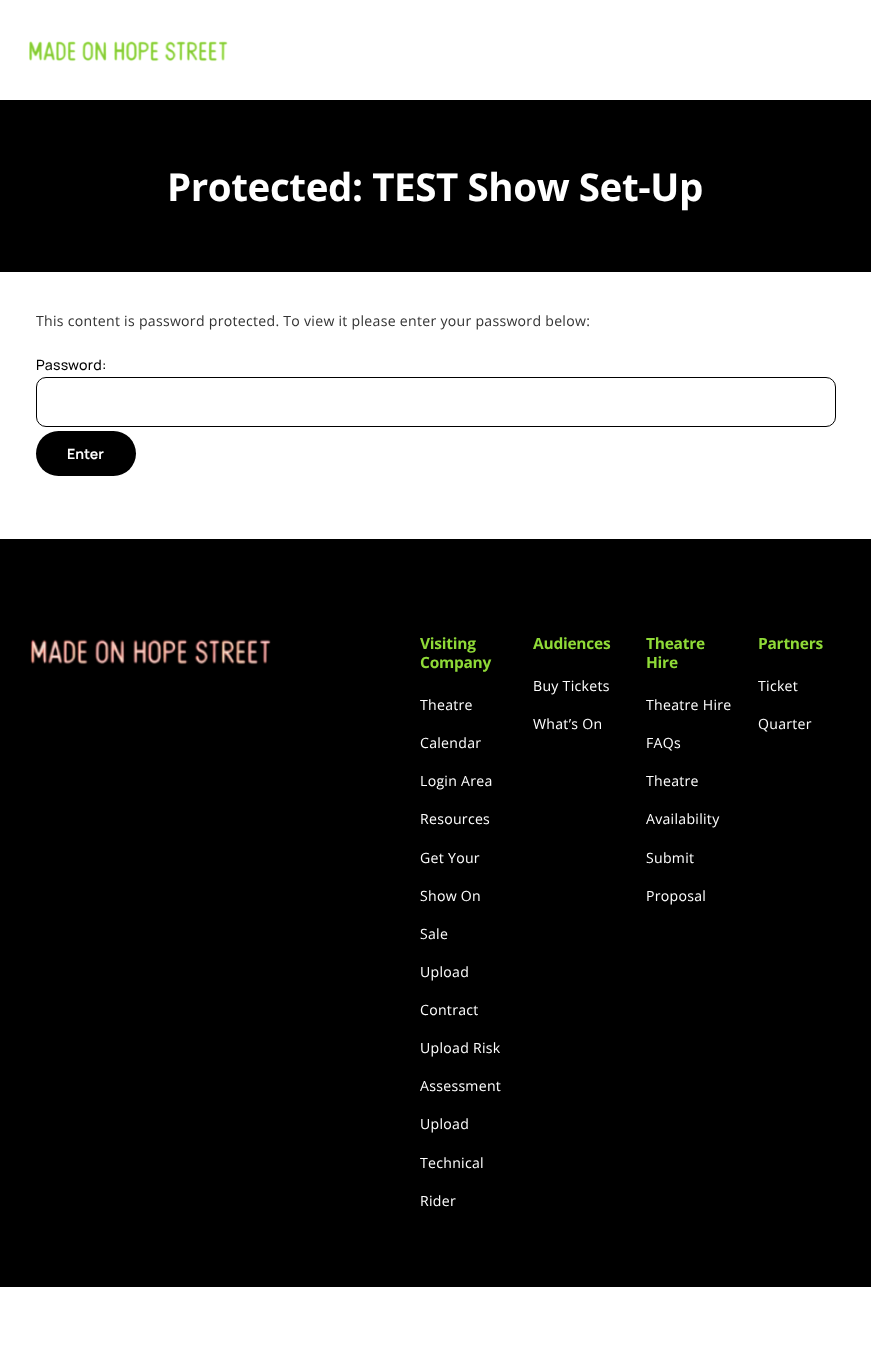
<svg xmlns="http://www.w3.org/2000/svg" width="871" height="1357">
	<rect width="100%" height="100%" fill="#FFFFFF" />
	<image x="29" y="41" width="199" height="21" href="assets/img1.png" />
	<rect x="0" y="100" width="871" height="172" fill="#000000" />
	<text x="167" y="201" font-family="Open Sans" font-size="38.5" font-weight="700" letter-spacing="-0.4" fill="#FFFFFF">Protected: TEST Show Set-Up</text>
	<text x="36" y="326" font-family="Open Sans" font-size="14.1" letter-spacing="0.28" fill="#333333">This content is password protected. To view it please enter your password below:</text>
	<text x="36" y="370" font-family="Manrope" font-size="14.1" font-weight="500" letter-spacing="0.28" fill="#000000">Password:</text>
	<rect x="36.5" y="377.5" width="799" height="49" rx="9.5" fill="none" stroke="#000000" />
	<rect x="36" y="431" width="100" height="45" rx="22.5" fill="#000000" />
	<text x="67" y="459" font-family="Manrope" font-size="14.1" font-weight="700" fill="#FFFFFF">Enter</text>
	<rect x="0" y="539" width="871" height="748" fill="#000000" />
	<image x="30" y="639" width="241" height="26" href="assets/img2.png" />
	<g font-family="Open Sans" font-size="15.5" font-weight="700" letter-spacing="-0.25" fill="#8FDA37">
		<text x="420" y="649">Visiting</text>
		<text x="420" y="668">Company</text>
	</g>
	<g font-family="Open Sans" font-size="14.1" letter-spacing="0.28" fill="#FFFFFF">
		<text x="420" y="710">Theatre</text>
		<text x="420" y="748">Calendar</text>
		<text x="420" y="786">Login Area</text>
		<text x="420" y="824">Resources</text>
		<text x="420" y="863">Get Your</text>
		<text x="420" y="901">Show On</text>
		<text x="420" y="939">Sale</text>
		<text x="420" y="977">Upload</text>
		<text x="420" y="1015">Contract</text>
		<text x="420" y="1053">Upload Risk</text>
		<text x="420" y="1091">Assessment</text>
		<text x="420" y="1129">Upload</text>
		<text x="420" y="1168">Technical</text>
		<text x="420" y="1206">Rider</text>
	</g>
	<text x="533" y="649" font-family="Open Sans" font-size="15.5" font-weight="700" letter-spacing="-0.25" fill="#8FDA37">Audiences</text>
	<g font-family="Open Sans" font-size="14.1" letter-spacing="0.28" fill="#FFFFFF">
		<text x="533" y="691">Buy Tickets</text>
		<text x="533" y="729">What’s On</text>
	</g>
	<g font-family="Open Sans" font-size="15.5" font-weight="700" letter-spacing="-0.25" fill="#8FDA37">
		<text x="646" y="649">Theatre</text>
		<text x="646" y="668">Hire</text>
	</g>
	<g font-family="Open Sans" font-size="14.1" letter-spacing="0.28" fill="#FFFFFF">
		<text x="646" y="710">Theatre Hire</text>
		<text x="646" y="748">FAQs</text>
		<text x="646" y="786">Theatre</text>
		<text x="646" y="824">Availability</text>
		<text x="646" y="863">Submit</text>
		<text x="646" y="901">Proposal</text>
	</g>
	<text x="758" y="649" font-family="Open Sans" font-size="15.5" font-weight="700" letter-spacing="-0.25" fill="#8FDA37">Partners</text>
	<g font-family="Open Sans" font-size="14.1" letter-spacing="0.28" fill="#FFFFFF">
		<text x="758" y="691">Ticket</text>
		<text x="758" y="729">Quarter</text>
	</g>
</svg>
